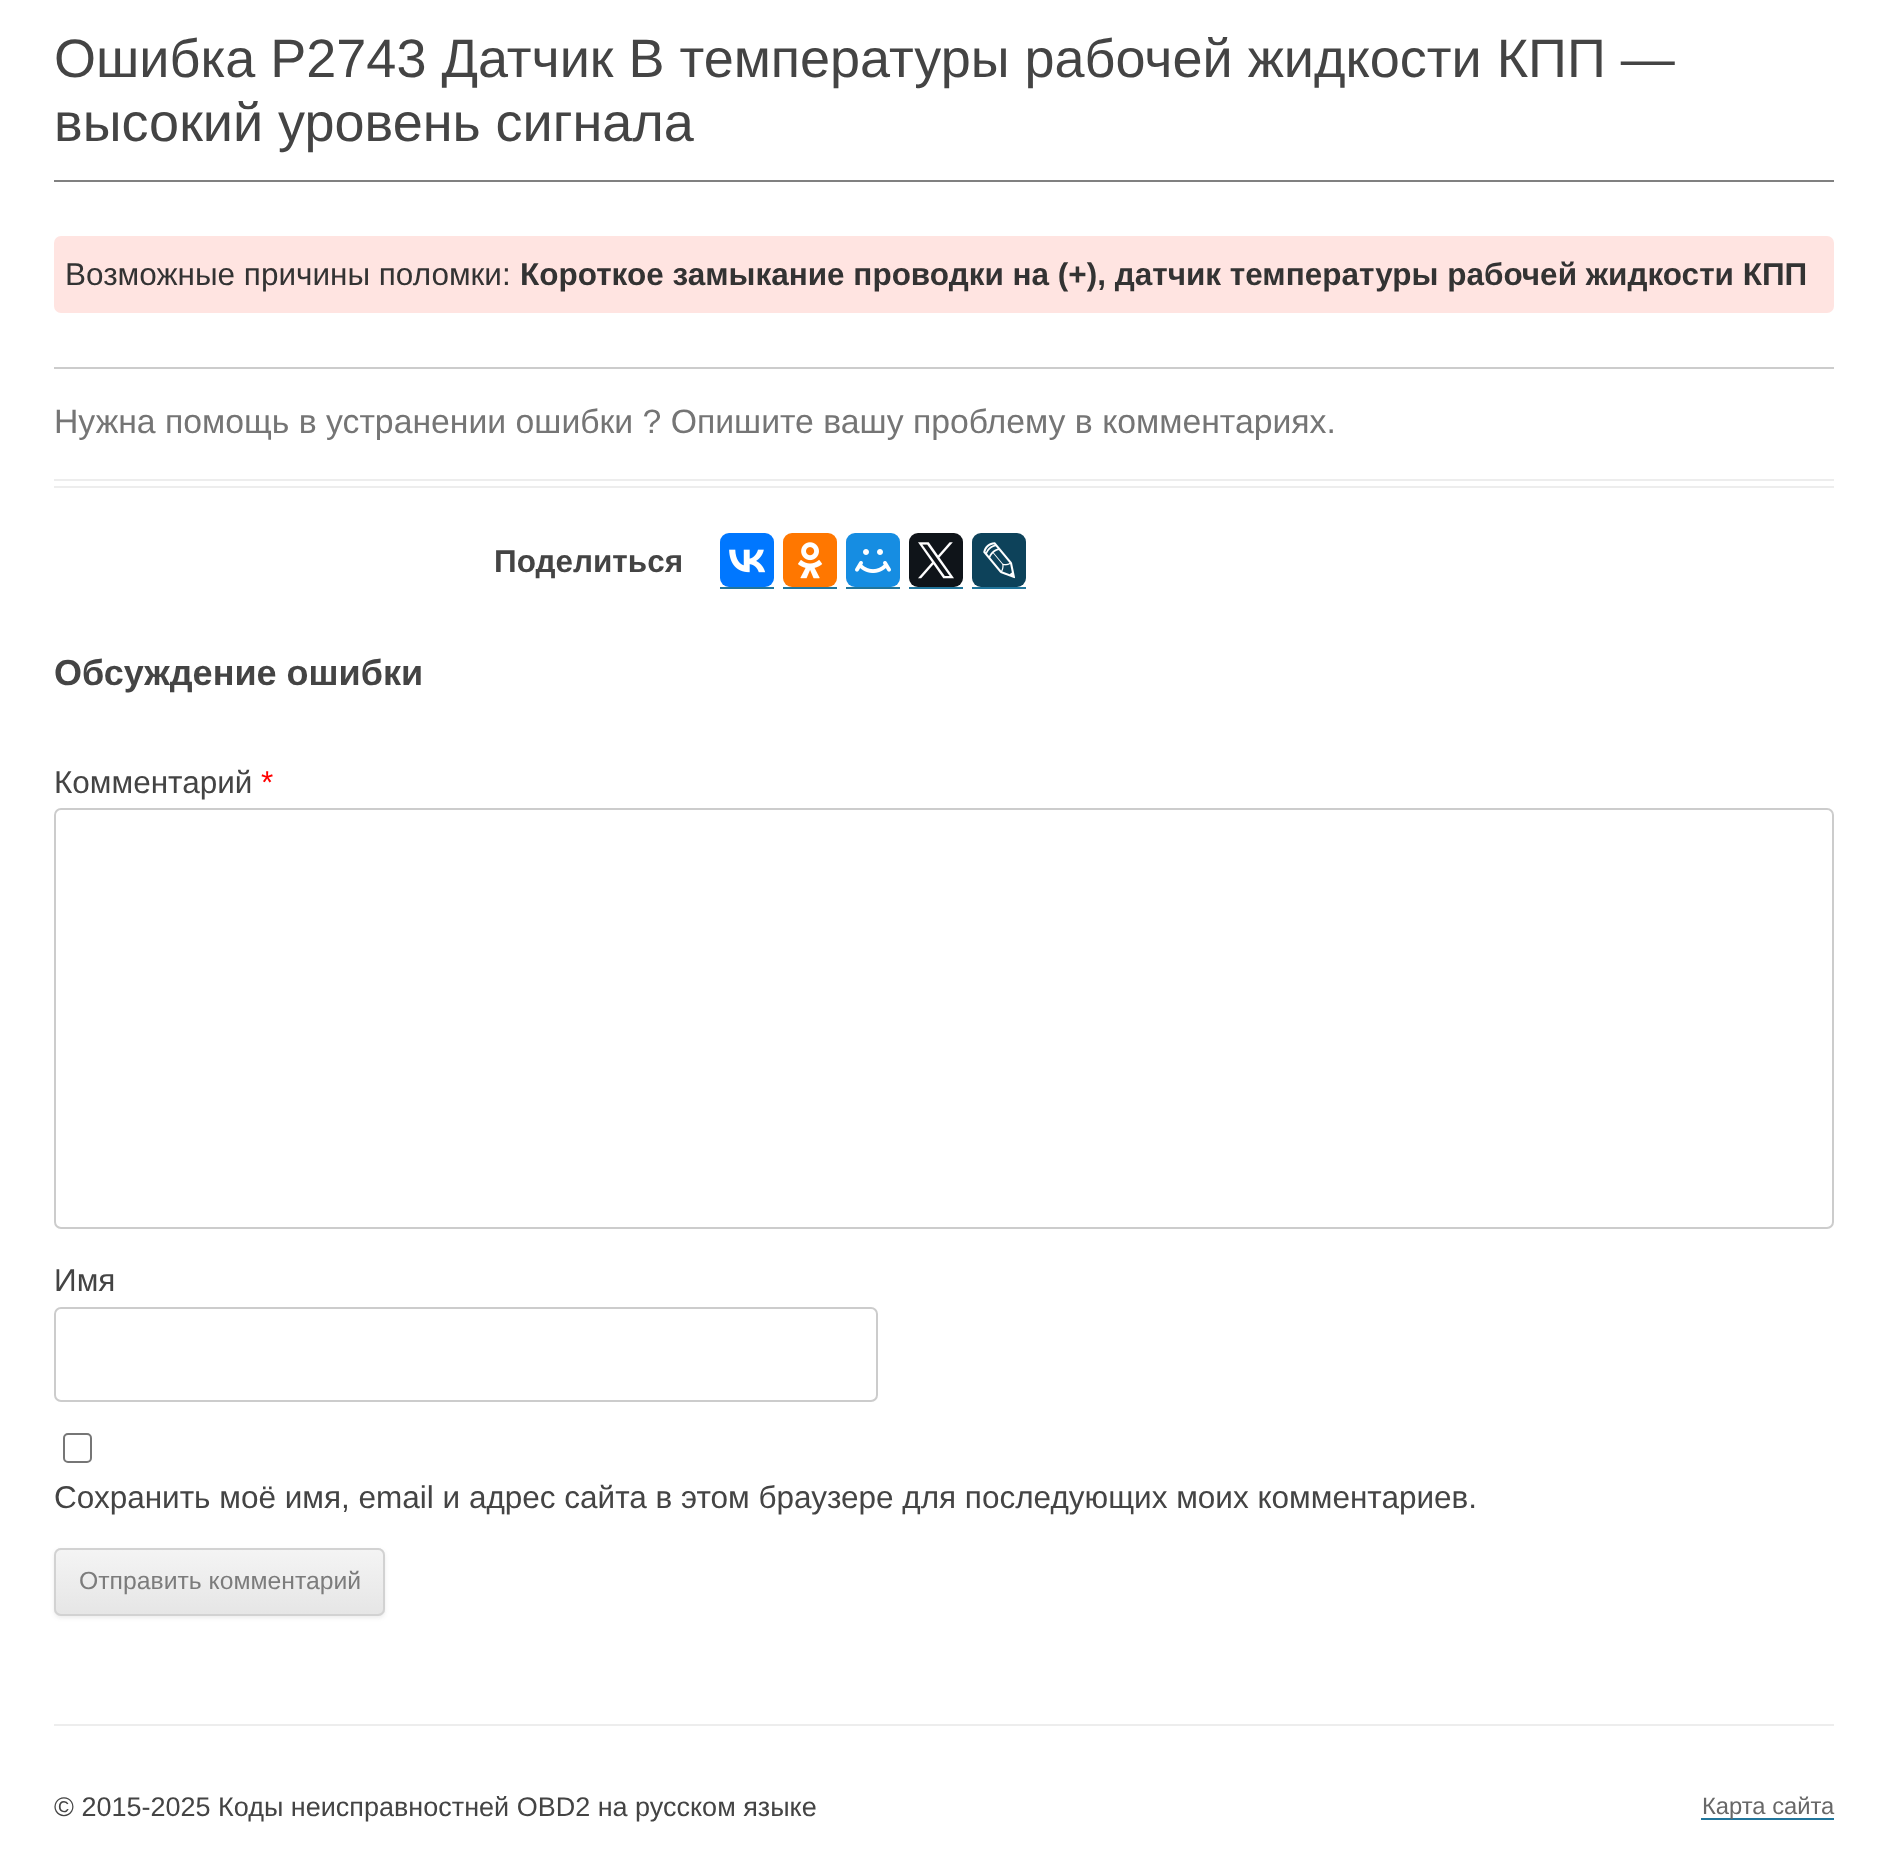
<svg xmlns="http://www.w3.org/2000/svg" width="1887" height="1851">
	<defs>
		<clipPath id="clip1"><rect x="54" y="1548" width="331" height="68" rx="7" /></clipPath>
		<linearGradient id="g1" gradientUnits="userSpaceOnUse" x1="219" y1="1550" x2="219" y2="1613"><stop offset="0" stop-color="#F4F4F4" /><stop offset="1" stop-color="#E6E6E6" /></linearGradient>
	</defs>
	<rect width="100%" height="100%" fill="#FFFFFF" />
	<rect x="54" y="479" width="1780" height="2" fill="#EDEDED" />
	<rect x="54" y="486" width="1780" height="2" fill="#EDEDED" />
	<rect x="54" y="180" width="1780" height="2" fill="#808080" />
	<g font-family="Liberation Sans" font-size="54" fill="#444444">
		<text x="54" y="77">Ошибка P2743 Датчик B температуры рабочей жидкости КПП —</text>
		<text x="54" y="141">высокий уровень сигнала</text>
	</g>
	<rect x="54" y="236" width="1780" height="77" rx="7" fill="#FFE4E1" />
	<text x="65" y="285" font-family="Liberation Sans" font-size="31.5" fill="#333333">Возможные причины поломки:</text>
	<text x="520" y="285" font-family="Liberation Sans" font-size="31.5" font-weight="700" fill="#333333">Короткое замыкание проводки на (+), датчик температуры рабочей жидкости КПП</text>
	<rect x="54" y="367" width="1780" height="2" fill="#CCCCCC" />
	<text x="54" y="433" font-family="Liberation Sans" font-size="33.75" fill="#757575">Нужна помощь в устранении ошибки ? Опишите вашу проблему в комментариях.</text>
	<text x="494" y="572" font-family="Liberation Sans" font-size="31.5" font-weight="700" fill="#444444">Поделиться</text>
	<rect x="720" y="587" width="54" height="2" fill="#21759B" />
	<rect x="720" y="533" width="54" height="54" rx="9" fill="#0077FF" />
	<image x="729" y="549" width="37" height="24" href="assets/img1.png" />
	<rect x="783" y="587" width="54" height="2" fill="#21759B" />
	<rect x="783" y="533" width="54" height="54" rx="9" fill="#FF7700" />
	<image x="798" y="542" width="25" height="37" href="assets/img2.png" />
	<rect x="846" y="587" width="54" height="2" fill="#21759B" />
	<rect x="846" y="533" width="54" height="54" rx="9" fill="#168DE2" />
	<image x="855" y="549" width="36" height="24" href="assets/img3.png" />
	<rect x="909" y="587" width="54" height="2" fill="#21759B" />
	<rect x="909" y="533" width="54" height="54" rx="9" fill="#0F1419" />
	<image x="918" y="542" width="36" height="37" href="assets/img4.png" />
	<rect x="972" y="587" width="54" height="2" fill="#21759B" />
	<rect x="972" y="533" width="54" height="54" rx="9" fill="#0D425A" />
	<image x="983" y="542" width="32" height="37" href="assets/img5.png" />
	<text x="54" y="685" font-family="Liberation Sans" font-size="36" font-weight="700" fill="#444444">Обсуждение ошибки</text>
	<text x="54" y="793" font-family="Liberation Sans" font-size="31.5" fill="#444444">Комментарий</text>
	<text x="261" y="793" font-family="Liberation Sans" font-size="31.5" fill="#FF0000">*</text>
	<rect x="55" y="809" width="1778" height="419" rx="6" fill="none" stroke="#CCCCCC" stroke-width="2" />
	<text x="54" y="1291" font-family="Liberation Sans" font-size="31.5" fill="#444444">Имя</text>
	<rect x="55" y="1308" width="822" height="93" rx="6" fill="none" stroke="#CCCCCC" stroke-width="2" />
	<rect x="64" y="1434" width="27" height="28" rx="4" fill="none" stroke="#767676" stroke-width="2" />
	<text x="54" y="1508" font-family="Liberation Sans" font-size="31.5" fill="#444444">Сохранить моё имя, email и адрес сайта в этом браузере для последующих моих комментариев.</text>
	<rect x="54" y="1550" width="331" height="68" rx="7" fill="#404040" fill-opacity="0.1" filter="blur(2px)" />
	<rect x="54" y="1548" width="331" height="68" rx="7" fill="#E6E6E6" />
	<g clip-path="url(#clip1)">
		<rect x="54" y="1550" width="331" height="63" fill="url(#g1)" />
	</g>
	<rect x="55" y="1549" width="329" height="66" rx="6" fill="none" stroke="#D2D2D2" stroke-width="2" />
	<text x="79" y="1589" font-family="Liberation Sans" font-size="24.75" fill="#7C7C7C">Отправить комментарий</text>
	<rect x="54" y="1724" width="1780" height="2" fill="#EDEDED" />
	<text x="54" y="1816" font-family="Liberation Sans" font-size="27" fill="#444444">© 2015-2025 Коды неисправностней OBD2 на русском языке</text>
	<rect x="1701" y="1818" width="133" height="2" fill="#21759B" />
	<text x="1702" y="1814" font-family="Liberation Sans" font-size="23.75" fill="#686868">Карта сайта</text>
</svg>
